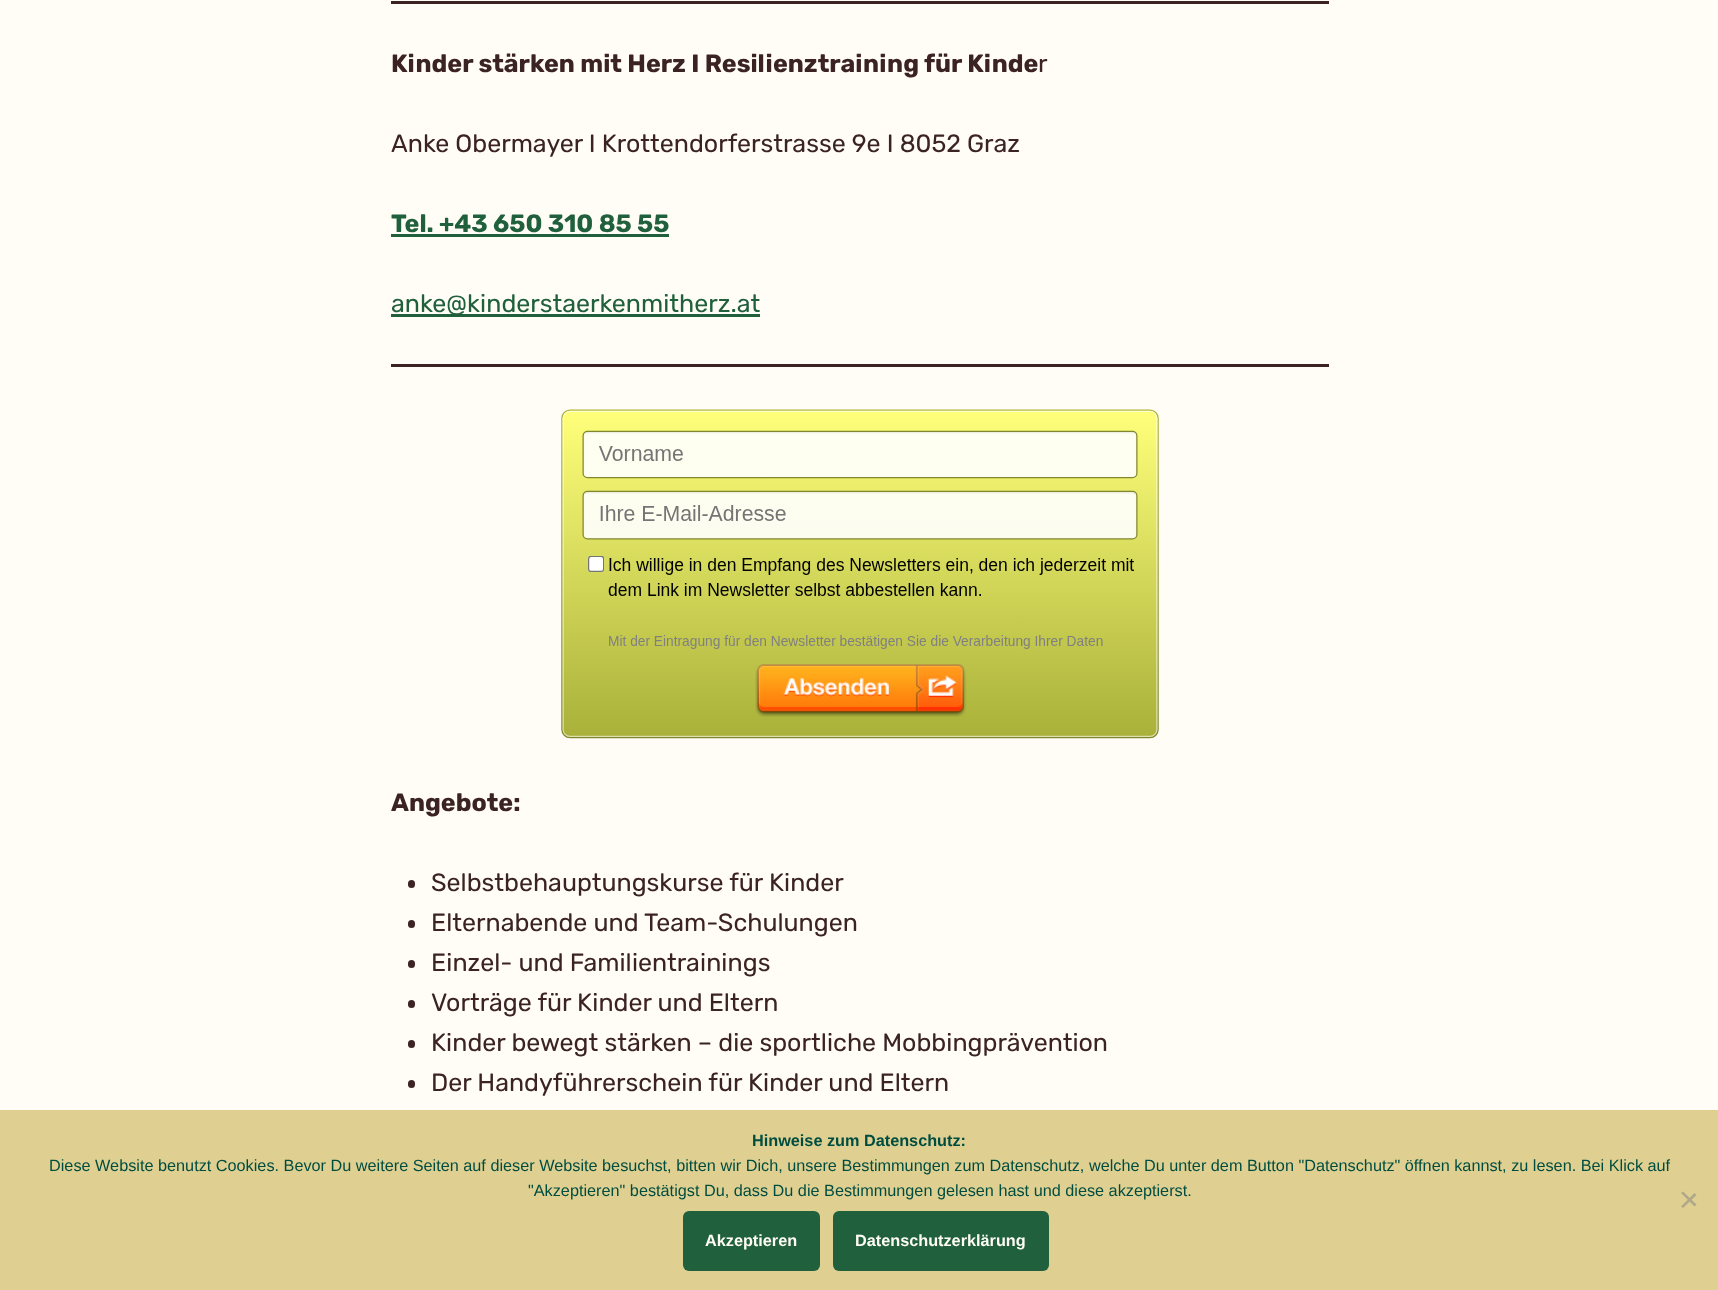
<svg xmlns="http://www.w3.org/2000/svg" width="1718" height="1290">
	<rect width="100%" height="100%" fill="#FFFDF6" />
	<rect x="391" y="1" width="938" height="3" fill="#3C2323" />
	<text x="391" y="72" font-family="Rubik" font-size="25" font-weight="300" fill="#3C2323">Kinder stärken mit Herz I Resilienztraining für Kinde</text>
	<g font-family="'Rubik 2'" font-size="25" font-weight="300" fill="#3C2323">
		<text x="1038" y="72">r</text>
		<text x="391" y="152">Anke Obermayer I Krottendorferstrasse 9e I 8052 Graz</text>
	</g>
	<text x="391" y="232" font-family="Rubik" font-size="25" font-weight="300" fill="#20603C">Tel. +43 650 310 85 55</text>
	<rect x="391" y="234" width="278" height="3" fill="#20603C" />
	<rect x="391" y="314" width="369" height="3" fill="#20603C" />
	<text x="391" y="312" font-family="'Rubik 2'" font-size="25" font-weight="300" fill="#20603C">anke@kinderstaerkenmitherz.at</text>
	<rect x="391" y="364" width="938" height="3" fill="#3C2323" />
	<image x="561" y="409" width="598" height="330" href="assets/img1.png" />
	<text x="391" y="811" font-family="Rubik" font-size="25" font-weight="300" fill="#3C2323">Angebote:</text>
	<rect x="408" y="880" width="7" height="8" rx="3.5" fill="#3C2323" />
	<text x="431" y="891" font-family="'Rubik 2'" font-size="25" font-weight="300" fill="#3C2323">Selbstbehauptungskurse für Kinder</text>
	<rect x="408" y="920" width="7" height="8" rx="3.5" fill="#3C2323" />
	<text x="431" y="931" font-family="'Rubik 2'" font-size="25" font-weight="300" fill="#3C2323">Elternabende und Team-Schulungen</text>
	<rect x="408" y="960" width="7" height="8" rx="3.5" fill="#3C2323" />
	<text x="431" y="971" font-family="'Rubik 2'" font-size="25" font-weight="300" fill="#3C2323">Einzel- und Familientrainings</text>
	<rect x="408" y="1000" width="7" height="8" rx="3.5" fill="#3C2323" />
	<text x="431" y="1011" font-family="'Rubik 2'" font-size="25" font-weight="300" fill="#3C2323">Vorträge für Kinder und Eltern</text>
	<rect x="408" y="1040" width="7" height="8" rx="3.5" fill="#3C2323" />
	<text x="431" y="1051" font-family="'Rubik 2'" font-size="25" font-weight="300" fill="#3C2323">Kinder bewegt stärken – die sportliche Mobbingprävention</text>
	<rect x="408" y="1080" width="7" height="8" rx="3.5" fill="#3C2323" />
	<text x="431" y="1091" font-family="'Rubik 2'" font-size="25" font-weight="300" fill="#3C2323">Der Handyführerschein für Kinder und Eltern</text>
	<rect x="0" y="1110" width="1718" height="180" fill="#DFD092" />
	<text x="752" y="1146" font-family="Liberation Sans" font-size="16.25" font-weight="700" fill="#004D40">Hinweise zum Datenschutz:</text>
	<g font-family="Liberation Sans" font-size="16.25" fill="#004D40">
		<text x="49" y="1171">Diese Website benutzt Cookies. Bevor Du weitere Seiten auf dieser Website besuchst, bitten wir Dich, unsere Bestimmungen zum Datenschutz, welche Du unter dem Button "Datenschutz" öffnen kannst, zu lesen. Bei Klick auf</text>
		<text x="528" y="1196">"Akzeptieren" bestätigst Du, dass Du die Bestimmungen gelesen hast und diese akzeptierst.</text>
	</g>
	<path d="M1694.5 1193L1696.5 1195L1683 1208L1681 1206.5Z" fill="#B0A889" />
	<path d="M1681 1193L1683 1191.5L1696.5 1204.5L1694.5 1206.5Z" fill="#B0A889" />
	<rect x="683" y="1211" width="137" height="60" rx="6" fill="#20603C" />
	<text x="705" y="1246" font-family="Liberation Sans" font-size="16.25" font-weight="700" fill="#FFFDF6">Akzeptieren</text>
	<rect x="833" y="1211" width="216" height="60" rx="6" fill="#20603C" />
	<text x="855" y="1246" font-family="Liberation Sans" font-size="16.25" font-weight="700" fill="#FFFDF6">Datenschutzerklärung</text>
</svg>
